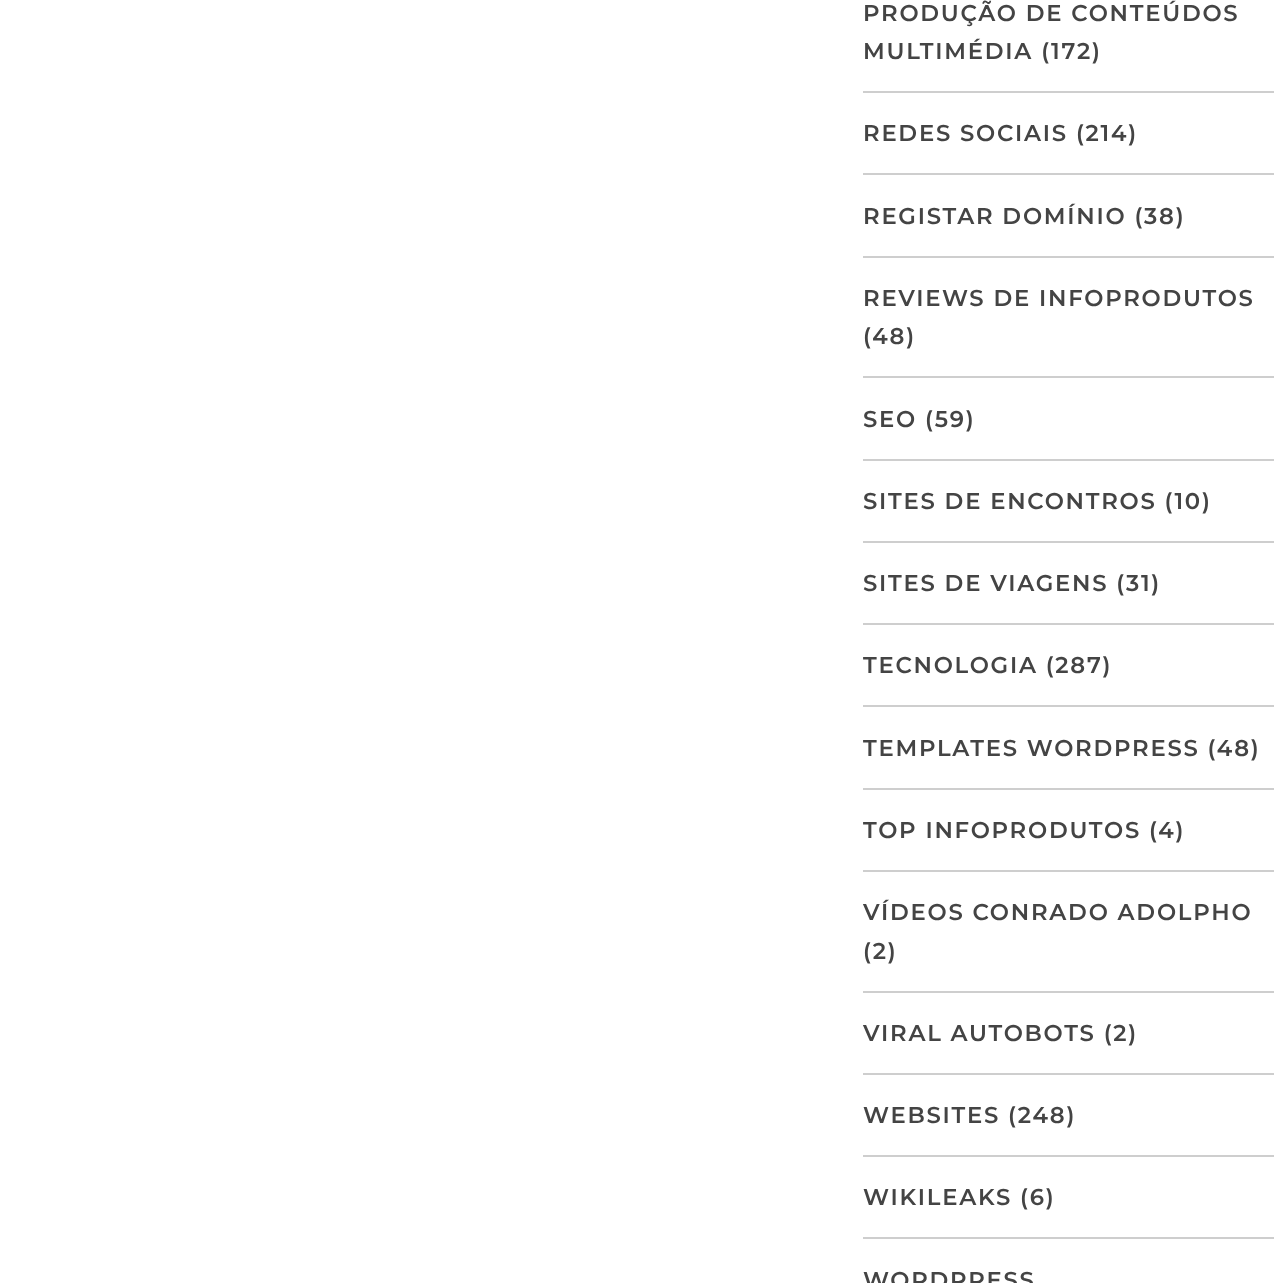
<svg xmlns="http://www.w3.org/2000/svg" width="1274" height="1283">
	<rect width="100%" height="100%" fill="#FFFFFF" />
	<g font-family="Montserrat" font-size="22.75" font-weight="600" letter-spacing="1.75" fill="#444444">
		<text x="863" y="21">PRODUÇÃO DE CONTEÚDOS</text>
		<text x="863" y="59">MULTIMÉDIA (172)</text>
	</g>
	<rect x="863" y="91" width="411" height="2" fill="#CECECE" />
	<text x="863" y="141" font-family="Montserrat" font-size="22.75" font-weight="600" letter-spacing="1.75" fill="#444444">REDES SOCIAIS (214)</text>
	<rect x="863" y="173" width="411" height="2" fill="#CECECE" />
	<text x="863" y="224" font-family="Montserrat" font-size="22.75" font-weight="600" letter-spacing="1.75" fill="#444444">REGISTAR DOMÍNIO (38)</text>
	<rect x="863" y="256" width="411" height="2" fill="#CECECE" />
	<g font-family="Montserrat" font-size="22.75" font-weight="600" letter-spacing="1.75" fill="#444444">
		<text x="863" y="306">REVIEWS DE INFOPRODUTOS</text>
		<text x="863" y="344">(48)</text>
	</g>
	<rect x="863" y="376" width="411" height="2" fill="#CECECE" />
	<text x="863" y="427" font-family="Montserrat" font-size="22.75" font-weight="600" letter-spacing="1.75" fill="#444444">SEO (59)</text>
	<rect x="863" y="459" width="411" height="2" fill="#CECECE" />
	<text x="863" y="509" font-family="Montserrat" font-size="22.75" font-weight="600" letter-spacing="1.75" fill="#444444">SITES DE ENCONTROS (10)</text>
	<rect x="863" y="541" width="411" height="2" fill="#CECECE" />
	<text x="863" y="591" font-family="Montserrat" font-size="22.75" font-weight="600" letter-spacing="1.75" fill="#444444">SITES DE VIAGENS (31)</text>
	<rect x="863" y="623" width="411" height="2" fill="#CECECE" />
	<text x="863" y="673" font-family="Montserrat" font-size="22.75" font-weight="600" letter-spacing="1.75" fill="#444444">TECNOLOGIA (287)</text>
	<rect x="863" y="705" width="411" height="2" fill="#CECECE" />
	<text x="863" y="756" font-family="Montserrat" font-size="22.75" font-weight="600" letter-spacing="1.75" fill="#444444">TEMPLATES WORDPRESS (48)</text>
	<rect x="863" y="788" width="411" height="2" fill="#CECECE" />
	<text x="863" y="838" font-family="Montserrat" font-size="22.75" font-weight="600" letter-spacing="1.75" fill="#444444">TOP INFOPRODUTOS (4)</text>
	<rect x="863" y="870" width="411" height="2" fill="#CECECE" />
	<g font-family="Montserrat" font-size="22.75" font-weight="600" letter-spacing="1.75" fill="#444444">
		<text x="863" y="920">VÍDEOS CONRADO ADOLPHO</text>
		<text x="863" y="959">(2)</text>
	</g>
	<rect x="863" y="991" width="411" height="2" fill="#CECECE" />
	<text x="863" y="1041" font-family="Montserrat" font-size="22.75" font-weight="600" letter-spacing="1.75" fill="#444444">VIRAL AUTOBOTS (2)</text>
	<rect x="863" y="1073" width="411" height="2" fill="#CECECE" />
	<text x="863" y="1123" font-family="Montserrat" font-size="22.75" font-weight="600" letter-spacing="1.75" fill="#444444">WEBSITES (248)</text>
	<rect x="863" y="1155" width="411" height="2" fill="#CECECE" />
	<text x="863" y="1205" font-family="Montserrat" font-size="22.75" font-weight="600" letter-spacing="1.75" fill="#444444">WIKILEAKS (6)</text>
	<rect x="863" y="1237" width="411" height="2" fill="#CECECE" />
	<text x="863" y="1288" font-family="Montserrat" font-size="22.75" font-weight="600" letter-spacing="1.75" fill="#444444">WORDPRESS</text>
</svg>
